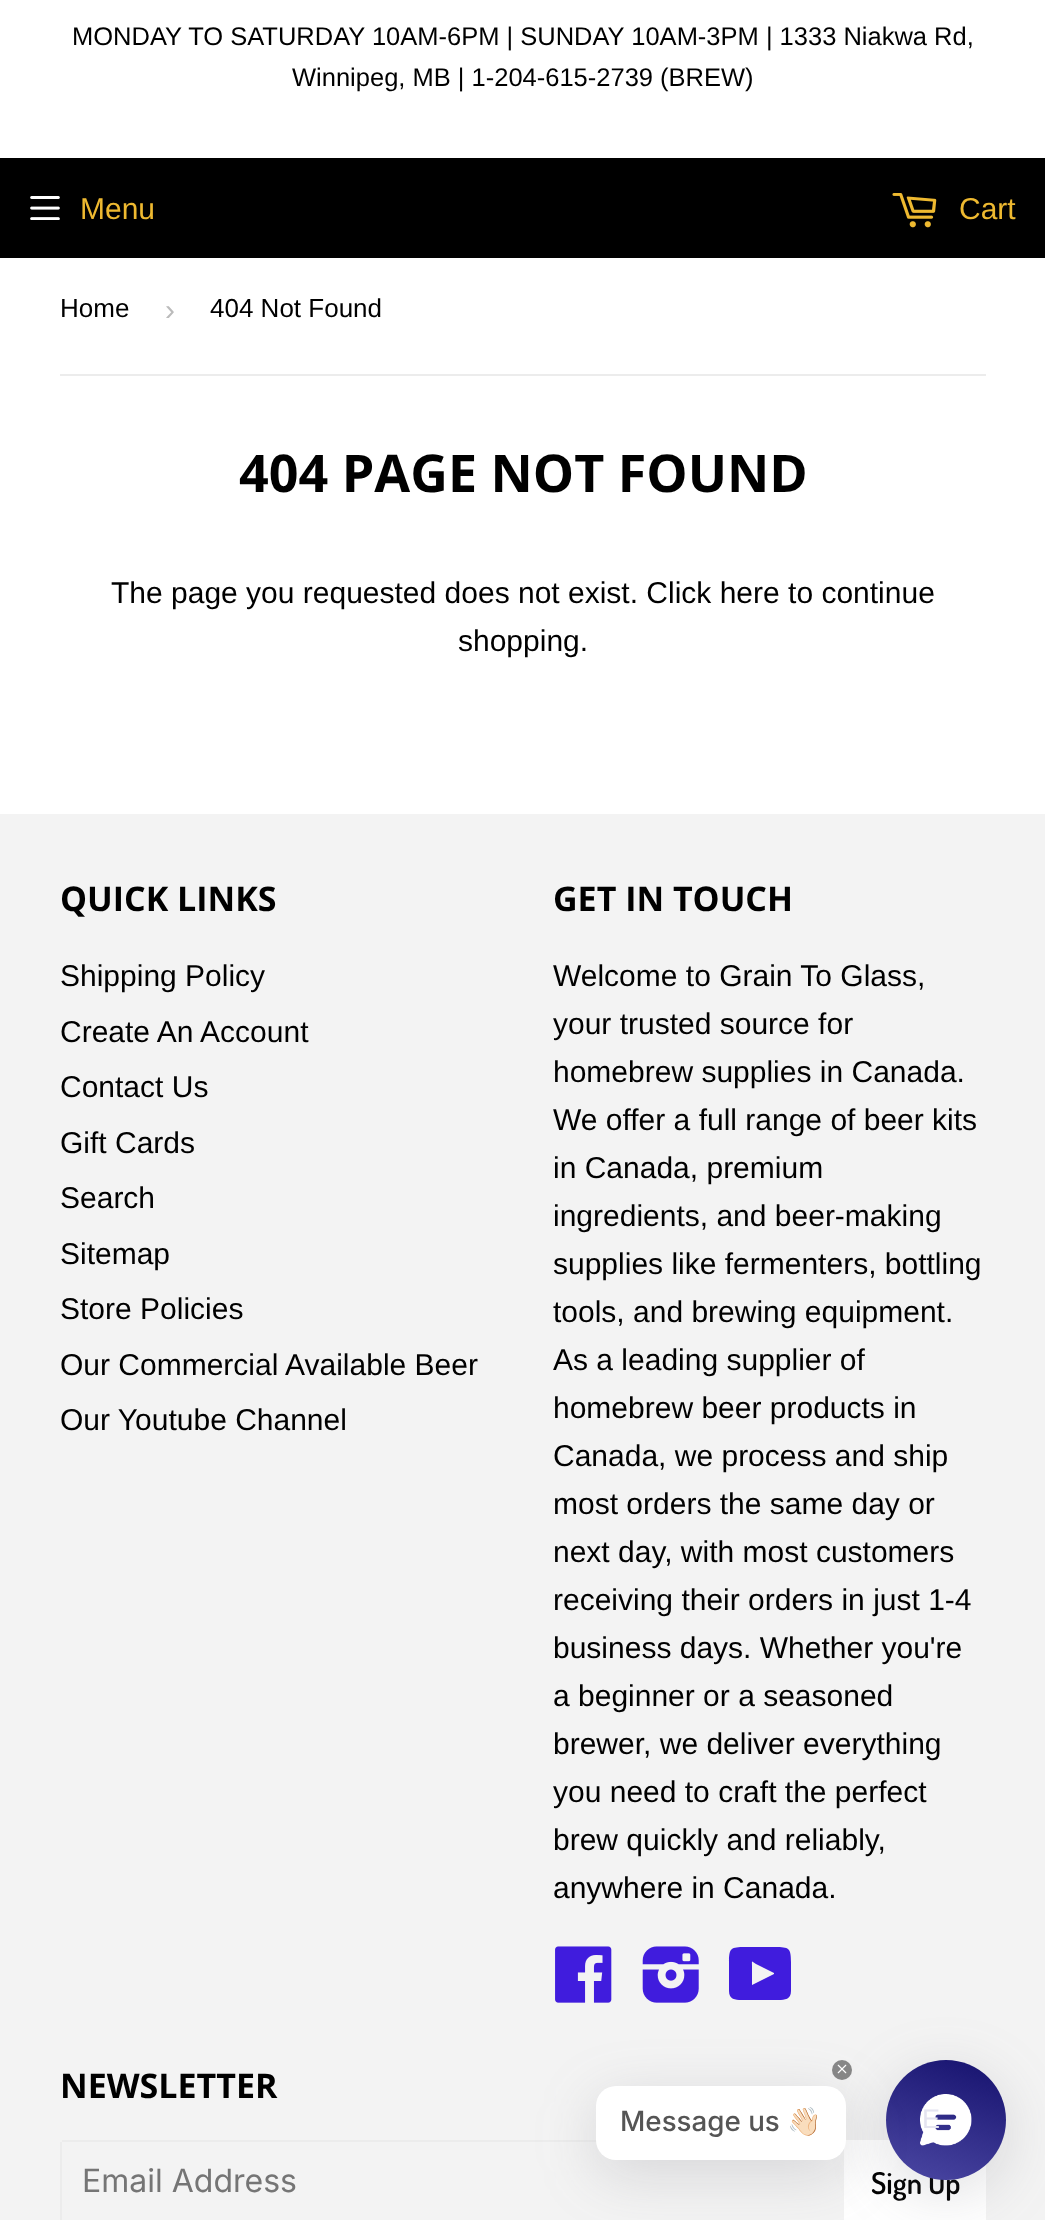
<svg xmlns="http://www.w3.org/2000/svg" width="1045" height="2220">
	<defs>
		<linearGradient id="g1" gradientUnits="userSpaceOnUse" x1="971" y1="2048" x2="921" y2="2192"><stop offset="0" stop-color="#15116D" /><stop offset="1" stop-color="#4C48A4" /></linearGradient>
	</defs>
	<rect width="100%" height="100%" fill="#FFFFFF" />
	<g font-family="Liberation Sans" font-size="25.5" fill="#000000">
		<text x="72" y="45">MONDAY TO SATURDAY 10AM-6PM | SUNDAY 10AM-3PM | 1333 Niakwa Rd,</text>
		<text x="292" y="86">Winnipeg, MB | 1-204-615-2739 (BREW)</text>
	</g>
	<rect x="0" y="158" width="1045" height="100" fill="#000000" />
	<image x="30" y="196" width="30" height="24" href="assets/img1.png" />
	<text x="80" y="219" font-family="Liberation Sans" font-size="30" fill="#EEB930">Menu</text>
	<image x="892" y="193" width="45" height="35" href="assets/img2.png" />
	<text x="959" y="219" font-family="Liberation Sans" font-size="30" fill="#EEB930">Cart</text>
	<rect x="60" y="374" width="926" height="2" fill="#ECECEC" />
	<text x="60" y="317" font-family="Liberation Sans" font-size="26" fill="#000000">Home</text>
	<text x="165" y="320" font-family="Liberation Sans" font-size="30" fill="#BBBBBB">›</text>
	<text x="210" y="317" font-family="Liberation Sans" font-size="26" fill="#000000">404 Not Found</text>
	<text x="239" y="492" font-family="Open Sans" font-size="52" font-weight="700" fill="#000000">404 PAGE NOT FOUND</text>
	<g font-family="Liberation Sans" font-size="30" fill="#000000">
		<text x="111" y="603">The page you requested does not exist. Click here to continue</text>
		<text x="458" y="651">shopping.</text>
	</g>
	<rect x="0" y="814" width="1045" height="1406" fill="#F3F3F3" />
	<text x="60" y="911" font-family="Open Sans" font-size="34" font-weight="700" fill="#000000">QUICK LINKS</text>
	<g font-family="Liberation Sans" font-size="30" fill="#000000">
		<text x="60" y="986">Shipping Policy</text>
		<text x="60" y="1042">Create An Account</text>
		<text x="60" y="1097">Contact Us</text>
		<text x="60" y="1153">Gift Cards</text>
		<text x="60" y="1208">Search</text>
		<text x="60" y="1264">Sitemap</text>
		<text x="60" y="1319">Store Policies</text>
		<text x="60" y="1375">Our Commercial Available Beer</text>
		<text x="60" y="1430">Our Youtube Channel</text>
	</g>
	<text x="553" y="911" font-family="Open Sans" font-size="34" font-weight="700" fill="#000000">GET IN TOUCH</text>
	<g font-family="Liberation Sans" font-size="30" fill="#000000">
		<text x="553" y="986">Welcome to Grain To Glass,</text>
		<text x="553" y="1034">your trusted source for</text>
		<text x="553" y="1082">homebrew supplies in Canada.</text>
		<text x="553" y="1130">We offer a full range of beer kits</text>
		<text x="553" y="1178">in Canada, premium</text>
		<text x="553" y="1226">ingredients, and beer-making</text>
		<text x="553" y="1274">supplies like fermenters, bottling</text>
		<text x="553" y="1322">tools, and brewing equipment.</text>
		<text x="553" y="1370">As a leading supplier of</text>
		<text x="553" y="1418">homebrew beer products in</text>
		<text x="553" y="1466">Canada, we process and ship</text>
		<text x="553" y="1514">most orders the same day or</text>
		<text x="553" y="1562">next day, with most customers</text>
		<text x="553" y="1610">receiving their orders in just 1-4</text>
		<text x="553" y="1658">business days. Whether you're</text>
		<text x="553" y="1706">a beginner or a seasoned</text>
		<text x="553" y="1754">brewer, we deliver everything</text>
		<text x="553" y="1802">you need to craft the perfect</text>
		<text x="553" y="1850">brew quickly and reliably,</text>
		<text x="553" y="1898">anywhere in Canada.</text>
	</g>
	<image x="555" y="1946" width="57" height="57" href="assets/img3.png" />
	<image x="642" y="1946" width="57" height="57" href="assets/img4.png" />
	<path d="M729 1991C729 2001 738 2000 745 2000H775C782 2000 791 2001 791 1991V1962C791 1948 789 1947 775 1947H745C731 1947 729 1948 729 1962ZM752 1985V1966C752 1960 751 1961 756 1964L774 1973V1974Z" fill="#401CDD" />
	<text x="60" y="2098" font-family="Open Sans" font-size="34" font-weight="700" fill="#000000">NEWSLETTER</text>
	<rect x="62" y="2140" width="535" height="2" fill="#ECECEC" />
	<rect x="60" y="2142" width="2" height="78" fill="#ECECEC" />
	<text x="82" y="2192" font-family="Inter" font-size="32" fill="#757575">Email Address</text>
	<rect x="844" y="2140" width="142" height="80" fill="#FFFFFF" />
	<text x="871" y="2194" font-family="Dosis" font-size="30" font-weight="600" fill="#000000">Sign Up</text>
	<rect x="886" y="2074" width="120" height="120" rx="60" fill="#64646F" fill-opacity="0.2" filter="blur(29px)" />
	<circle cx="946" cy="2120" r="60" fill="url(#g1)" />
	<image x="920" y="2094" width="52" height="52" href="assets/img6.png" />
	<rect x="596" y="2100" width="250" height="74" rx="20" fill="#64646F" fill-opacity="0.2" filter="blur(29px)" />
	<rect x="596" y="2086" width="250" height="74" rx="20" fill="#FFFFFF" />
	<circle cx="842" cy="2070" r="10" fill="#303030" fill-opacity="0.55" />
	<image x="837" y="2064" width="10" height="10" href="assets/img5.png" />
	<text x="620" y="2131" font-family="Inter" font-size="27.75" font-weight="500" fill="#555555">Message us</text>
	<text x="787" y="2131" font-family="Noto Color Emoji" font-size="27.75" fill="#555555">👋🏻</text>
	<text x="922" y="2128" font-family="Liberation Sans" font-size="27" fill="#E4E4F0">E</text>
</svg>
